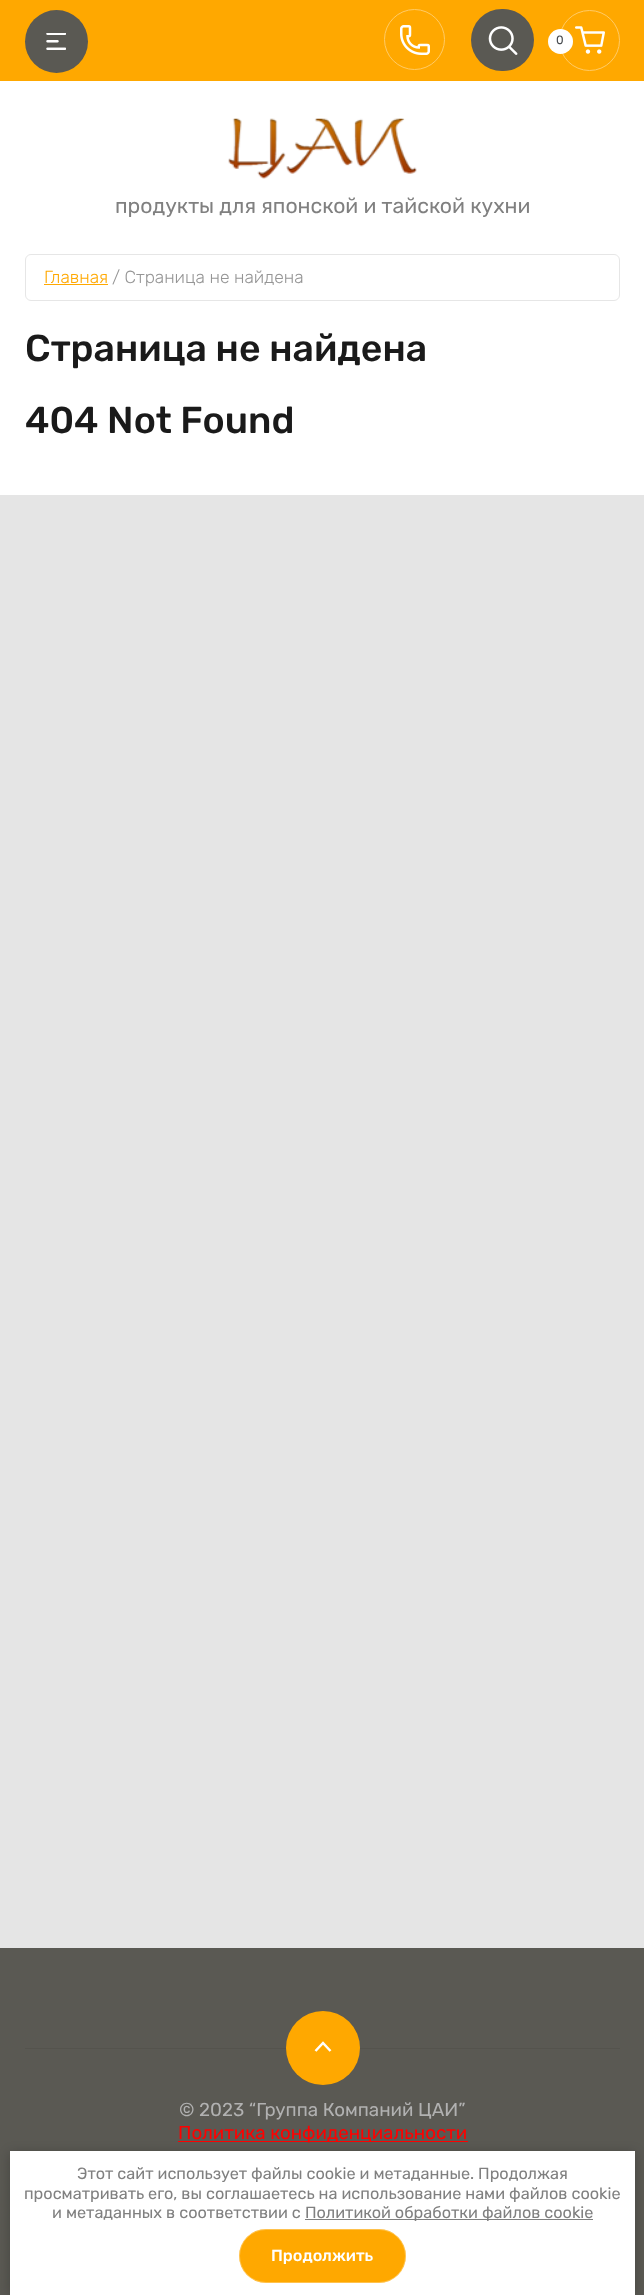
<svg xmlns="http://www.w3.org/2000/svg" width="644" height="2295">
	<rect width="100%" height="100%" fill="#E5E5E5" />
	<rect x="0" y="0" width="644" height="81" fill="#FFA800" />
	<circle cx="56.5" cy="41.5" r="31.5" fill="#5A5953" />
	<image x="46" y="33" width="20" height="17" href="assets/img1.png" />
	<image x="400" y="25" width="30" height="30" href="assets/img2.png" />
	<circle cx="414.5" cy="39.5" r="30" fill="none" stroke="#FFCB66" />
	<rect x="471" y="9" width="63" height="62" rx="31" fill="#5A5953" />
	<image x="488" y="26" width="30" height="29" href="assets/img3.png" />
	<circle cx="589.5" cy="40.5" r="30" fill="none" stroke="#FFCB66" />
	<circle cx="560.5" cy="41.5" r="12.5" fill="#FFFFFF" />
	<text x="556" y="44" font-family="Rubik" font-size="12" fill="#484C50">0</text>
	<image x="575" y="26" width="30" height="28" href="assets/img4.png" />
	<rect x="0" y="81" width="644" height="414" fill="#FFFFFF" />
	<image x="228" y="118" width="189" height="61" href="assets/img5.png" />
	<text x="115" y="213" font-family="Rubik" font-size="21.25" fill="#808080">продукты для японской и тайской кухни</text>
	<rect x="25.5" y="254.5" width="594" height="46" rx="5.5" fill="none" stroke="#E6E6E6" />
	<text x="44" y="283" font-family="Rubik" font-size="17.5" font-weight="300" fill="#FFA800">Главная</text>
	<rect x="44" y="284" width="64" height="1" fill="#FFA800" />
	<text x="112" y="283" font-family="Rubik" font-size="17.5" font-weight="300" fill="#959595">/ Страница не найдена</text>
	<g font-family="Rubik" font-size="37.5" font-weight="500" fill="#1A1A1A">
		<text x="25" y="361">Страница не найдена</text>
		<text x="25" y="433">404 Not Found</text>
	</g>
	<rect x="0" y="1948" width="644" height="347" fill="#5A5953" />
	<rect x="25" y="2048" width="595" height="1" fill="#54534D" />
	<circle cx="323" cy="2048" r="37" fill="#FFA800" />
	<path d="M315.5 2051L323 2043L330.5 2051" fill="none" stroke="#FFFFFF" stroke-width="2.5" />
	<text x="179" y="2116" font-family="Rubik" font-size="18.75" fill="#B1B1B1">© 2023 “Группа Компаний ЦАИ”</text>
	<rect x="178" y="2141" width="290" height="1" fill="#FF0000" />
	<text x="178" y="2139" font-family="Rubik" font-size="18.75" fill="#FF0000">Политика конфиденциальности</text>
	<rect x="10" y="2153" width="625" height="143" fill="#000000" fill-opacity="0.23" filter="blur(6px)" />
	<rect x="10" y="2151" width="625" height="144" fill="#FFFFFF" />
	<g font-family="Rubik" font-size="16.25" fill="#808080">
		<text x="77" y="2179">Этот сайт использует файлы cookie и метаданные. Продолжая</text>
		<text x="24" y="2199">просматривать его, вы соглашаетесь на использование нами файлов cookie</text>
		<text x="52" y="2218">и метаданных в соответствии с</text>
	</g>
	<rect x="305" y="2219" width="288" height="1" fill="#808080" />
	<text x="305" y="2218" font-family="Rubik" font-size="16.25" fill="#808080">Политикой обработки файлов cookie</text>
	<rect x="239" y="2229" width="167" height="54" rx="27" fill="#FFA800" />
	<rect x="239.5" y="2229.5" width="166" height="53" rx="26.5" fill="none" stroke="#FFFFFF" stroke-opacity="0.3" />
	<text x="271" y="2261" font-family="Rubik" font-size="16.25" font-weight="500" fill="#FFFFFF">Продолжить</text>
</svg>
